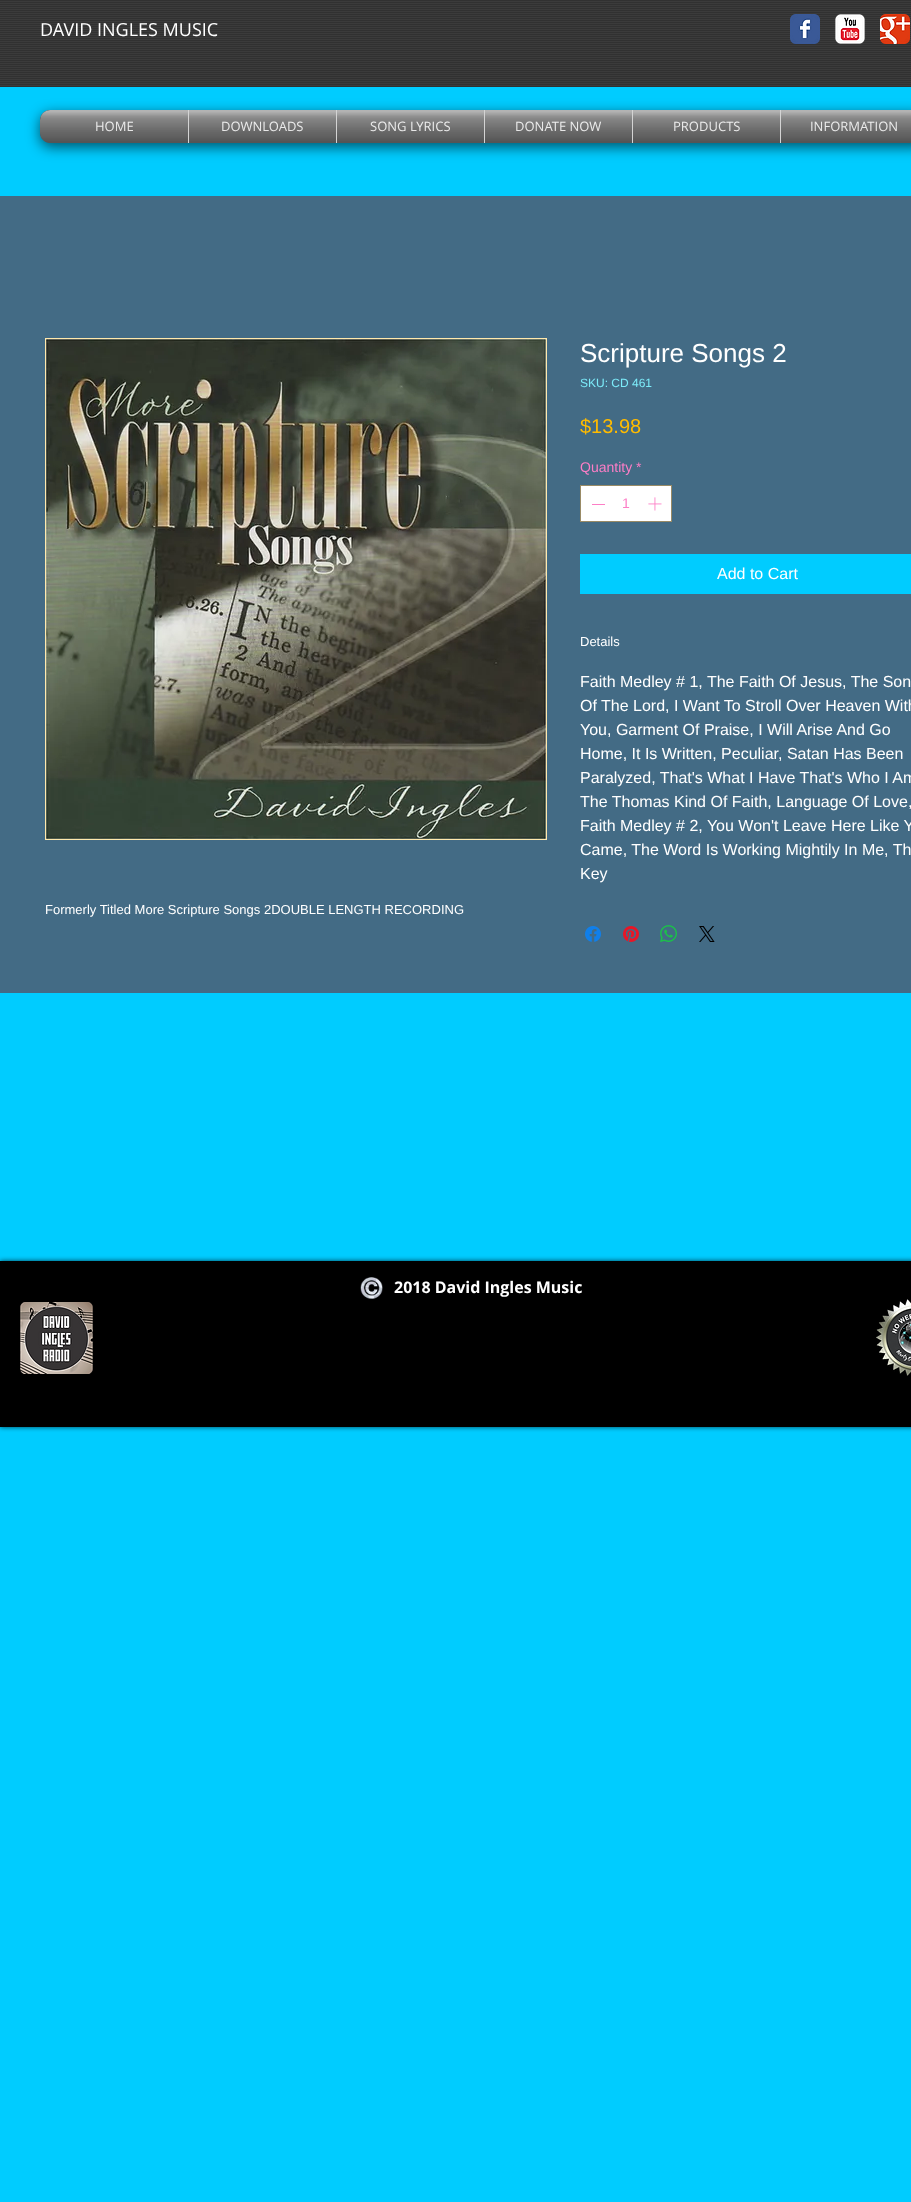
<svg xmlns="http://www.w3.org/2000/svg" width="911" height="2202">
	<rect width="100%" height="100%" fill="#00CCFF" />
	<image x="0" y="0" width="911" height="87" href="assets/img1.png" />
	<text x="40" y="36" font-family="Open Sans" font-size="18" fill="#FFFFFF">DAVID INGLES MUSIC</text>
	<image x="790" y="14" width="30" height="30" href="assets/img2.png" />
	<image x="835" y="14" width="30" height="30" href="assets/img3.png" />
	<image x="880" y="14" width="30" height="30" href="assets/img4.png" />
	<rect x="40" y="114" width="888" height="33" rx="10" fill="#000000" fill-opacity="0.6" filter="blur(7px)" />
	<image x="40" y="110" width="10" height="33" href="assets/img5.png" />
	<image x="40" y="119" width="10" height="24" href="assets/img6.png" />
	<path d="M50 110H188V143H50C44.5 143 40 138.5 40 133V120C40 114.5 44.5 110 50 110Z" fill="#545454" />
	<text x="95" y="131" font-family="Open Sans" font-size="13" fill="#FFFFFF">HOME</text>
	<image x="40" y="110" width="148" height="33" href="assets/img7.png" />
	<image x="40" y="110" width="148" height="33" href="assets/img8.png" />
	<rect x="189" y="110" width="147" height="33" fill="#545454" />
	<rect x="188" y="110" width="1" height="33" fill="#D4D4D4" />
	<text x="221" y="131" font-family="Open Sans" font-size="13" fill="#FFFFFF">DOWNLOADS</text>
	<image x="189" y="110" width="147" height="33" href="assets/img9.png" />
	<image x="189" y="110" width="147" height="33" href="assets/img10.png" />
	<rect x="337" y="110" width="147" height="33" fill="#545454" />
	<rect x="336" y="110" width="1" height="33" fill="#D4D4D4" />
	<text x="370" y="131" font-family="Open Sans" font-size="13" fill="#FFFFFF">SONG LYRICS</text>
	<image x="337" y="110" width="147" height="33" href="assets/img11.png" />
	<image x="337" y="110" width="147" height="33" href="assets/img12.png" />
	<rect x="485" y="110" width="147" height="33" fill="#545454" />
	<rect x="484" y="110" width="1" height="33" fill="#D4D4D4" />
	<text x="515" y="131" font-family="Open Sans" font-size="13" fill="#FFFFFF">DONATE NOW</text>
	<image x="485" y="110" width="147" height="33" href="assets/img13.png" />
	<image x="485" y="110" width="147" height="33" href="assets/img14.png" />
	<rect x="633" y="110" width="147" height="33" fill="#545454" />
	<rect x="632" y="110" width="1" height="33" fill="#D4D4D4" />
	<text x="673" y="131" font-family="Open Sans" font-size="13" fill="#FFFFFF">PRODUCTS</text>
	<image x="633" y="110" width="147" height="33" href="assets/img15.png" />
	<image x="633" y="110" width="147" height="33" href="assets/img16.png" />
	<rect x="781" y="110" width="130" height="33" fill="#545454" />
	<rect x="780" y="110" width="1" height="33" fill="#D4D4D4" />
	<text x="810" y="131" font-family="Open Sans" font-size="13" fill="#FFFFFF">INFORMATION</text>
	<image x="781" y="110" width="130" height="33" href="assets/img17.png" />
	<image x="781" y="110" width="130" height="33" href="assets/img18.png" />
	<rect x="0" y="196" width="911" height="797" fill="#436B85" />
	<text x="580" y="362" font-family="Liberation Sans" font-size="26" fill="#FFFFFF">Scripture Songs 2</text>
	<text x="580" y="387" font-family="Liberation Sans" font-size="12" fill="#7CEBF9">SKU: CD 461</text>
	<text x="580" y="433" font-family="Liberation Sans" font-size="20" fill="#FFBB00">$13.98</text>
	<text x="580" y="472" font-family="Liberation Sans" font-size="14" fill="#FD7EC6">Quantity *</text>
	<rect x="580.5" y="485.5" width="91" height="36" fill="#FFFFFF" stroke="#998B66" />
	<rect x="592" y="504" width="13" height="1" fill="#FD7EC6" />
	<text x="622" y="508" font-family="Liberation Sans" font-size="14" fill="#FD7EC6">1</text>
	<image x="648" y="497" width="14" height="14" href="assets/img19.png" />
	<rect x="580" y="554" width="331" height="40" fill="#00CCFF" />
	<text x="717" y="579" font-family="Liberation Sans" font-size="16" fill="#FFFFFF">Add to Cart</text>
	<text x="580" y="646" font-family="Liberation Sans" font-size="13" fill="#FFFFFF">Details</text>
	<g font-family="Liberation Sans" font-size="16" fill="#FFFFFF">
		<text x="580" y="687">Faith Medley # 1, The Faith Of Jesus, The Son</text>
		<text x="580" y="711">Of The Lord, I Want To Stroll Over Heaven With</text>
		<text x="580" y="735">You, Garment Of Praise, I Will Arise And Go</text>
		<text x="580" y="759">Home, It Is Written, Peculiar, Satan Has Been</text>
		<text x="580" y="783">Paralyzed, That's What I Have That's Who I Am</text>
		<text x="580" y="807">The Thomas Kind Of Faith, Language Of Love,</text>
		<text x="580" y="831">Faith Medley # 2, You Won't Leave Here Like Y</text>
		<text x="580" y="855">Came, The Word Is Working Mightily In Me, Th</text>
		<text x="580" y="879">Key</text>
	</g>
	<image x="585" y="926" width="16" height="16" href="assets/img20.png" />
	<image x="623" y="926" width="16" height="16" href="assets/img21.png" />
	<image x="660" y="925" width="17" height="17" href="assets/img22.png" />
	<image x="699" y="926" width="16" height="16" href="assets/img23.png" />
	<rect x="45.5" y="338.5" width="501" height="501" fill="none" stroke="#FFE9AD" />
	<image x="46" y="339" width="500" height="500" href="assets/img24.png" />
	<text x="45" y="914" font-family="Liberation Sans" font-size="13" fill="#FFFFFF">Formerly Titled More Scripture Songs 2DOUBLE LENGTH RECORDING</text>
	<rect x="0" y="1261" width="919" height="166" fill="#000000" fill-opacity="0.7" filter="blur(2.5px)" />
	<rect x="0" y="1261" width="911" height="166" fill="#000000" />
	<image x="360" y="1277" width="23" height="22" href="assets/img25.png" />
	<text x="394" y="1293" font-family="Open Sans" font-size="16" font-weight="700" fill="#FFFFFF">2018 David Ingles Music</text>
	<image x="20" y="1302" width="73" height="72" href="assets/img26.png" />
	<image x="876" y="1299" width="35" height="77" href="assets/img27.png" />
</svg>
